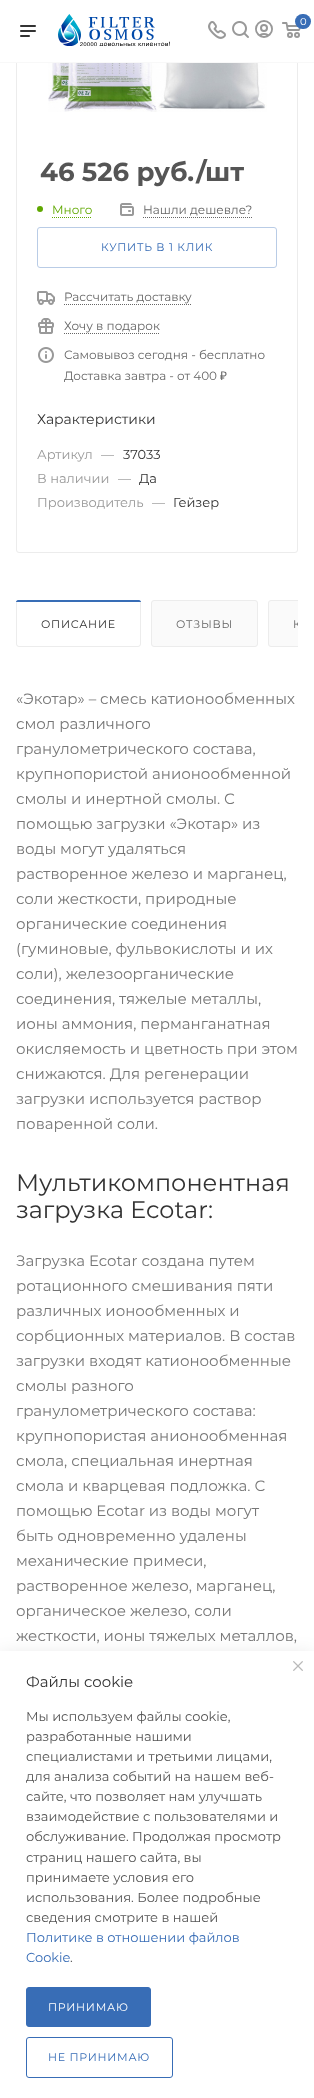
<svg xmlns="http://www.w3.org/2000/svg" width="314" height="2098">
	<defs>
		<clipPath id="clip1"><rect x="16" y="600" width="282" height="47" /></clipPath>
	</defs>
	<rect width="100%" height="100%" fill="#FFFFFF" />
	<rect x="16.5" y="-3.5" width="281" height="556" rx="2.5" fill="none" stroke="#ECECEC" />
	<rect x="16" y="0" width="282" height="62" fill="#FFFFFF" />
	<rect x="0" y="62" width="314" height="1" fill="#F8F8F8" />
	<image x="58" y="14" width="112" height="32" href="assets/img1.png" />
	<image x="208" y="21" width="18" height="18" href="assets/img2.png" />
	<image x="232" y="21" width="17" height="17" href="assets/img3.png" />
	<image x="255" y="20" width="18" height="18" href="assets/img4.png" />
	<image x="282" y="22" width="19" height="16" href="assets/img5.png" />
	<rect x="295" y="14" width="16" height="15" rx="7.5" fill="#386DB6" />
	<text x="300" y="25" font-family="Montserrat" font-size="10" fill="#FFFFFF">0</text>
	<image x="20" y="25" width="16" height="12" href="assets/img6.png" />
	<image x="48" y="63" width="219" height="49" href="assets/img7.png" />
	<text x="40" y="181" font-family="Montserrat" font-size="26" font-weight="700" fill="#555555">46 526 руб./шт</text>
	<circle cx="40" cy="209" r="3" fill="#5FA800" />
	<text x="52" y="214" font-family="Montserrat" font-size="12" fill="#5FA800">Много</text>
	<path d="M52 217.5H92" fill="none" stroke="#5FA800" stroke-dasharray="1 1" />
	<image x="120" y="203" width="14" height="13" href="assets/img8.png" />
	<text x="143" y="214" font-family="Montserrat" font-size="12" fill="#666666">Нашли дешевле?</text>
	<path d="M143 217.5H252" fill="none" stroke="#666666" stroke-dasharray="1 1" />
	<rect x="37.5" y="227.5" width="239" height="40" rx="2.5" fill="none" stroke="#B9CCE6" />
	<text x="101" y="251" font-family="Montserrat" font-size="11" letter-spacing="0.75" fill="#386DB6">КУПИТЬ В 1 КЛИК</text>
	<image x="37" y="291" width="18" height="14" href="assets/img9.png" />
	<text x="64" y="301" font-family="Montserrat" font-size="12" fill="#666666">Рассчитать доставку</text>
	<path d="M64 304.5H192" fill="none" stroke="#666666" stroke-dasharray="1 1" />
	<image x="38" y="318" width="16" height="16" href="assets/img10.png" />
	<text x="64" y="330" font-family="Montserrat" font-size="12" fill="#666666">Хочу в подарок</text>
	<path d="M64 333.5H160" fill="none" stroke="#666666" stroke-dasharray="1 1" />
	<image x="38" y="347" width="16" height="16" href="assets/img11.png" />
	<g font-family="Montserrat" font-size="12" fill="#666666">
		<text x="64" y="359">Самовывоз сегодня - бесплатно</text>
		<text x="64" y="380">Доставка завтра - от 400</text>
	</g>
	<text x="220" y="380" font-family="Noto Sans" font-size="12" fill="#666666">₽</text>
	<text x="37" y="424" font-family="Montserrat" font-size="14" fill="#333333">Характеристики</text>
	<g font-family="Montserrat" font-size="13" fill="#999999">
		<text x="37" y="459">Артикул</text>
		<text x="101" y="459">—</text>
	</g>
	<text x="123" y="459" font-family="Montserrat" font-size="13" fill="#333333">37033</text>
	<g font-family="Montserrat" font-size="13" fill="#999999">
		<text x="37" y="483">В наличии</text>
		<text x="118" y="483">—</text>
	</g>
	<text x="139" y="483" font-family="Montserrat" font-size="13" fill="#333333">Да</text>
	<g font-family="Montserrat" font-size="13" fill="#999999">
		<text x="37" y="507">Производитель</text>
		<text x="152" y="507">—</text>
	</g>
	<text x="173" y="507" font-family="Montserrat" font-size="13" fill="#333333">Гейзер</text>
	<rect x="16.5" y="600.5" width="124" height="46" rx="2.5" fill="#FAFAFA" stroke="#ECECEC" />
	<rect x="17" y="601" width="123" height="45" rx="3" fill="#FFFFFF" />
	<path d="M18 600H139C140 600 141 601 141 602H16C16 601 17 600 18 600Z" fill="#386DB6" />
	<text x="41" y="628" font-family="Montserrat" font-size="11" letter-spacing="0.75" fill="#333333">ОПИСАНИЕ</text>
	<rect x="151.5" y="600.5" width="106" height="46" rx="2.5" fill="#FAFAFA" stroke="#ECECEC" />
	<text x="176" y="628" font-family="Montserrat" font-size="11" letter-spacing="0.75" fill="#666666">ОТЗЫВЫ</text>
	<path d="M271 600H298V647H271C269.5 647 268 645.5 268 644V603C268 601.5 269.5 600 271 600Z" fill="#FAFAFA" />
	<g clip-path="url(#clip1)">
		<rect x="268.5" y="600.5" width="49" height="46" rx="2.5" fill="none" stroke="#ECECEC" />
		<text x="293" y="628" font-family="Montserrat" font-size="11" letter-spacing="0.75" fill="#666666">К</text>
	</g>
	<g font-family="Montserrat" font-size="15" fill="#777777">
		<text x="16" y="704">«Экотар» – смесь катионообменных</text>
		<text x="16" y="729">смол различного</text>
		<text x="16" y="754">гранулометрического состава,</text>
		<text x="16" y="779">крупнопористой анионообменной</text>
		<text x="16" y="804">смолы и инертной смолы. С</text>
		<text x="16" y="829">помощью загрузки «Экотар» из</text>
		<text x="16" y="854">воды могут удаляться</text>
		<text x="16" y="879">растворенное железо и марганец,</text>
		<text x="16" y="904">соли жесткости, природные</text>
		<text x="16" y="929">органические соединения</text>
		<text x="16" y="954">(гуминовые, фульвокислоты и их</text>
		<text x="16" y="979">соли), железоорганические</text>
		<text x="16" y="1004">соединения, тяжелые металлы,</text>
		<text x="16" y="1029">ионы аммония, перманганатная</text>
		<text x="16" y="1054">окисляемость и цветность при этом</text>
		<text x="16" y="1079">снижаются. Для регенерации</text>
		<text x="16" y="1104">загрузки используется раствор</text>
		<text x="16" y="1129">поваренной соли.</text>
	</g>
	<g font-family="Montserrat" font-size="24" fill="#333333">
		<text x="16" y="1191">Мультикомпонентная</text>
		<text x="16" y="1218">загрузка Ecotar:</text>
	</g>
	<g font-family="Montserrat" font-size="15" fill="#777777">
		<text x="16" y="1266">Загрузка Ecotar создана путем</text>
		<text x="16" y="1291">ротационного смешивания пяти</text>
		<text x="16" y="1316">различных ионообменных и</text>
		<text x="16" y="1341">сорбционных материалов. В состав</text>
		<text x="16" y="1366">загрузки входят катионообменные</text>
		<text x="16" y="1391">смолы разного</text>
		<text x="16" y="1416">гранулометрического состава:</text>
		<text x="16" y="1441">крупнопористая анионообменная</text>
		<text x="16" y="1466">смола, специальная инертная</text>
		<text x="16" y="1491">смола и кварцевая подложка. С</text>
		<text x="16" y="1516">помощью Ecotar из воды могут</text>
		<text x="16" y="1541">быть одновременно удалены</text>
		<text x="16" y="1566">механические примеси,</text>
		<text x="16" y="1591">растворенное железо, марганец,</text>
		<text x="16" y="1616">органическое железо, соли</text>
		<text x="16" y="1641">жесткости, ионы тяжелых металлов,</text>
	</g>
	<rect x="0" y="1656" width="314" height="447" fill="#000000" fill-opacity="0.12" filter="blur(10px)" />
	<rect x="0" y="1651" width="314" height="447" fill="#FFFFFF" />
	<image x="293" y="1661" width="10" height="10" href="assets/img12.png" />
	<text x="26" y="1687" font-family="Montserrat" font-size="15" fill="#333333">Файлы cookie</text>
	<g font-family="Montserrat" font-size="13" fill="#555555">
		<text x="26" y="1721">Мы используем файлы cookie,</text>
		<text x="26" y="1741">разработанные нашими</text>
		<text x="26" y="1761">специалистами и третьими лицами,</text>
		<text x="26" y="1781">для анализа событий на нашем веб-</text>
		<text x="26" y="1801">сайте, что позволяет нам улучшать</text>
		<text x="26" y="1821">взаимодействие с пользователями и</text>
		<text x="26" y="1841">обслуживание. Продолжая просмотр</text>
		<text x="26" y="1862">страниц нашего сайта, вы</text>
		<text x="26" y="1882">принимаете условия его</text>
		<text x="26" y="1902">использования. Более подробные</text>
		<text x="26" y="1922">сведения смотрите в нашей</text>
	</g>
	<g font-family="Montserrat" font-size="13" fill="#386DB6">
		<text x="26" y="1942">Политике в отношении файлов</text>
		<text x="26" y="1962">Cookie</text>
	</g>
	<text x="70" y="1962" font-family="Montserrat" font-size="13" fill="#555555">.</text>
	<rect x="26.5" y="1987.5" width="124" height="39" rx="2.5" fill="#386DB6" stroke="#386DB6" />
	<text x="48" y="2011" font-family="Montserrat" font-size="11" letter-spacing="0.75" fill="#FFFFFF">ПРИНИМАЮ</text>
	<rect x="26.5" y="2037.5" width="146" height="40" rx="2.5" fill="none" stroke="#386DB6" />
	<text x="48" y="2061" font-family="Montserrat" font-size="11" letter-spacing="0.75" fill="#386DB6">НЕ ПРИНИМАЮ</text>
</svg>
